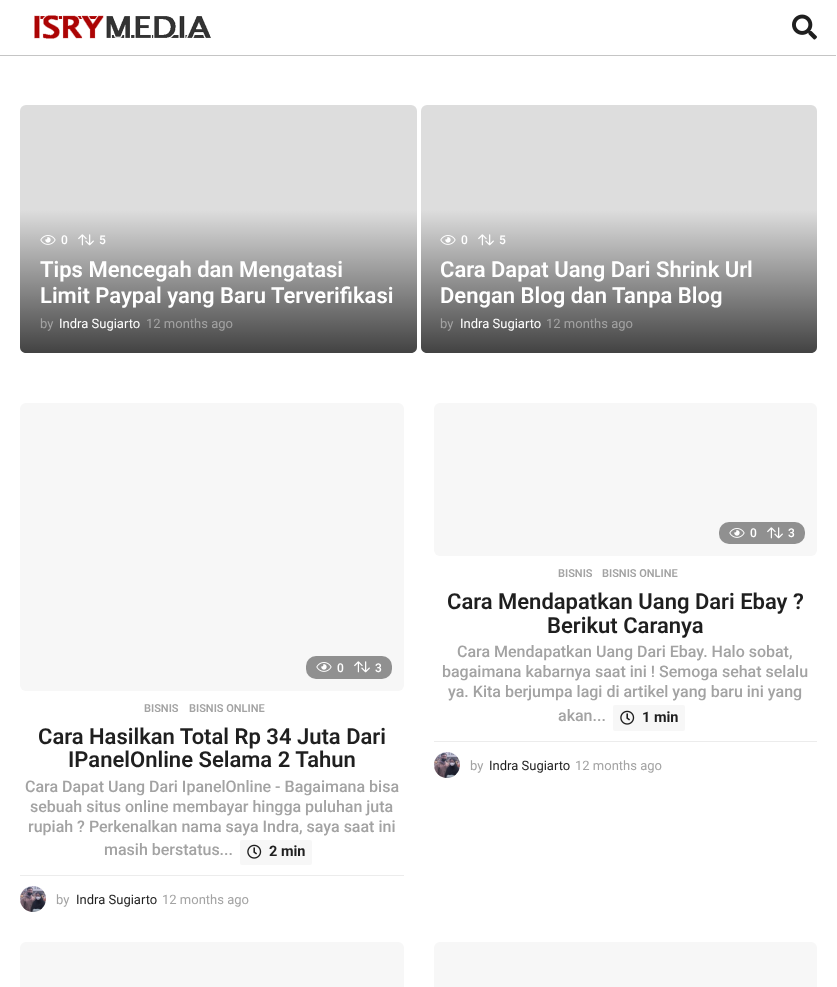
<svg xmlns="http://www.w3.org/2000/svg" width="837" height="987">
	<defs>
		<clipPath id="clip1"><rect x="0" y="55" width="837" height="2" /></clipPath>
		<linearGradient id="g1" gradientUnits="userSpaceOnUse" x1="219" y1="210" x2="219" y2="353"><stop offset="0" stop-color="#000000" stop-opacity="0" /><stop offset="1" stop-color="#000000" stop-opacity="0.7" /></linearGradient>
		<linearGradient id="g2" gradientUnits="userSpaceOnUse" x1="619" y1="210" x2="619" y2="353"><stop offset="0" stop-color="#000000" stop-opacity="0" /><stop offset="1" stop-color="#000000" stop-opacity="0.7" /></linearGradient>
	</defs>
	<rect width="100%" height="100%" fill="#FFFFFF" />
	<g clip-path="url(#clip1)">
		<rect x="-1" y="1" width="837" height="55" fill="#2A2A2A" fill-opacity="0.27" filter="blur(0.5px)" />
	</g>
	<image x="34" y="15" width="177" height="24" href="assets/img1.png" />
	<image x="792" y="14" width="25" height="26" href="assets/img2.png" />
	<rect x="20" y="105" width="397" height="248" rx="6" fill="#DDDDDD" />
	<path d="M20 210H417V347C417 350.5 414.5 353 411 353H26C22.5 353 20 350.5 20 347Z" fill="url(#g1)" />
	<image x="40" y="235" width="16" height="10" href="assets/img3.png" />
	<text x="61" y="244" font-family="Roboto" font-size="12" font-weight="500" fill="#FFFFFF">0</text>
	<image x="78" y="234" width="16" height="12" href="assets/img4.png" />
	<text x="99" y="244" font-family="Roboto" font-size="12" font-weight="500" fill="#FFFFFF">5</text>
	<g font-family="Roboto" font-size="22" font-weight="600" fill="#FFFFFF">
		<text x="40" y="277">Tips Mencegah dan Mengatasi</text>
		<text x="40" y="303">Limit Paypal yang Baru Terverifikasi</text>
	</g>
	<text x="40" y="328" font-family="Roboto" font-size="13" fill="#A3A3A3">by</text>
	<text x="59" y="328" font-family="Roboto" font-size="13" fill="#FFFFFF">Indra Sugiarto</text>
	<text x="146" y="328" font-family="Roboto" font-size="13" fill="#A3A3A3">12 months ago</text>
	<rect x="421" y="105" width="396" height="248" rx="6" fill="#DDDDDD" />
	<path d="M421 210H817V347C817 350.5 814.5 353 811 353H427C423.5 353 421 350.5 421 347Z" fill="url(#g2)" />
	<image x="440" y="235" width="16" height="10" href="assets/img3.png" />
	<text x="461" y="244" font-family="Roboto" font-size="12" font-weight="500" fill="#FFFFFF">0</text>
	<image x="478" y="234" width="16" height="12" href="assets/img4.png" />
	<text x="499" y="244" font-family="Roboto" font-size="12" font-weight="500" fill="#FFFFFF">5</text>
	<g font-family="Roboto" font-size="22" font-weight="600" fill="#FFFFFF">
		<text x="440" y="277">Cara Dapat Uang Dari Shrink Url</text>
		<text x="440" y="303">Dengan Blog dan Tanpa Blog</text>
	</g>
	<text x="440" y="328" font-family="Roboto" font-size="13" fill="#A3A3A3">by</text>
	<text x="460" y="328" font-family="Roboto" font-size="13" fill="#FFFFFF">Indra Sugiarto</text>
	<text x="546" y="328" font-family="Roboto" font-size="13" fill="#A3A3A3">12 months ago</text>
	<rect x="20" y="403" width="384" height="288" rx="6" fill="#F7F7F7" />
	<rect x="306" y="656" width="86" height="23" rx="10" fill="#909090" />
	<image x="316" y="662" width="16" height="10" href="assets/img5.png" />
	<text x="337" y="672" font-family="Roboto" font-size="12" font-weight="500" fill="#FFFFFF">0</text>
	<image x="354" y="661" width="16" height="12" href="assets/img6.png" />
	<text x="375" y="672" font-family="Roboto" font-size="12" font-weight="500" fill="#FFFFFF">3</text>
	<g font-family="Roboto" font-size="11" font-weight="600" fill="#A3A3A3">
		<text x="144" y="712">BISNIS</text>
		<text x="189" y="712">BISNIS ONLINE</text>
	</g>
	<g font-family="Roboto" font-size="22" font-weight="600" fill="#1F1F1F">
		<text x="38" y="744">Cara Hasilkan Total Rp 34 Juta Dari</text>
		<text x="68" y="767">IPanelOnline Selama 2 Tahun</text>
	</g>
	<g font-family="Roboto" font-size="16" font-weight="500" fill="#A3A3A3">
		<text x="25" y="792">Cara Dapat Uang Dari IpanelOnline - Bagaimana bisa</text>
		<text x="30" y="812">sebuah situs online membayar hingga puluhan juta</text>
		<text x="28" y="832">rupiah ? Perkenalkan nama saya Indra, saya saat ini</text>
		<text x="104" y="855">masih berstatus...</text>
	</g>
	<rect x="240" y="840" width="72" height="25" rx="2" fill="#F7F7F7" />
	<image x="247" y="844" width="15" height="15" href="assets/img7.png" />
	<text x="269" y="856" font-family="Roboto" font-size="14.5" font-weight="700" fill="#1F1F1F">2 min</text>
	<rect x="20" y="875" width="384" height="1" fill="#ECECEC" />
	<image x="20" y="886" width="26" height="26" href="assets/img8.png" />
	<text x="56" y="904" font-family="Roboto" font-size="13" fill="#A3A3A3">by</text>
	<text x="76" y="904" font-family="Roboto" font-size="13" fill="#1F1F1F">Indra Sugiarto</text>
	<text x="162" y="904" font-family="Roboto" font-size="13" fill="#A3A3A3">12 months ago</text>
	<rect x="434" y="403" width="383" height="153" rx="6" fill="#F7F7F7" />
	<rect x="719" y="522" width="86" height="22" rx="10" fill="#909090" />
	<image x="729" y="528" width="16" height="10" href="assets/img5.png" />
	<text x="750" y="537" font-family="Roboto" font-size="12" font-weight="500" fill="#FFFFFF">0</text>
	<image x="767" y="527" width="16" height="12" href="assets/img6.png" />
	<text x="788" y="537" font-family="Roboto" font-size="12" font-weight="500" fill="#FFFFFF">3</text>
	<g font-family="Roboto" font-size="11" font-weight="600" fill="#A3A3A3">
		<text x="558" y="577">BISNIS</text>
		<text x="602" y="577">BISNIS ONLINE</text>
	</g>
	<g font-family="Roboto" font-size="22" font-weight="600" fill="#1F1F1F">
		<text x="447" y="609">Cara Mendapatkan Uang Dari Ebay ?</text>
		<text x="547" y="633">Berikut Caranya</text>
	</g>
	<g font-family="Roboto" font-size="16" font-weight="500" fill="#A3A3A3">
		<text x="457" y="657">Cara Mendapatkan Uang Dari Ebay. Halo sobat,</text>
		<text x="442" y="677">bagaimana kabarnya saat ini ! Semoga sehat selalu</text>
		<text x="448" y="697">ya. Kita berjumpa lagi di artikel yang baru ini yang</text>
		<text x="558" y="721">akan...</text>
	</g>
	<rect x="613" y="705" width="72" height="26" rx="2" fill="#F7F7F7" />
	<image x="620" y="710" width="15" height="15" href="assets/img7.png" />
	<text x="642" y="722" font-family="Roboto" font-size="14.5" font-weight="700" fill="#1F1F1F">1 min</text>
	<rect x="434" y="741" width="383" height="1" fill="#ECECEC" />
	<image x="434" y="752" width="26" height="26" href="assets/img9.png" />
	<text x="470" y="770" font-family="Roboto" font-size="13" fill="#A3A3A3">by</text>
	<text x="489" y="770" font-family="Roboto" font-size="13" fill="#1F1F1F">Indra Sugiarto</text>
	<text x="575" y="770" font-family="Roboto" font-size="13" fill="#A3A3A3">12 months ago</text>
	<rect x="20" y="942" width="384" height="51" rx="6" fill="#F7F7F7" />
	<rect x="434" y="942" width="383" height="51" rx="6" fill="#F7F7F7" />
</svg>
